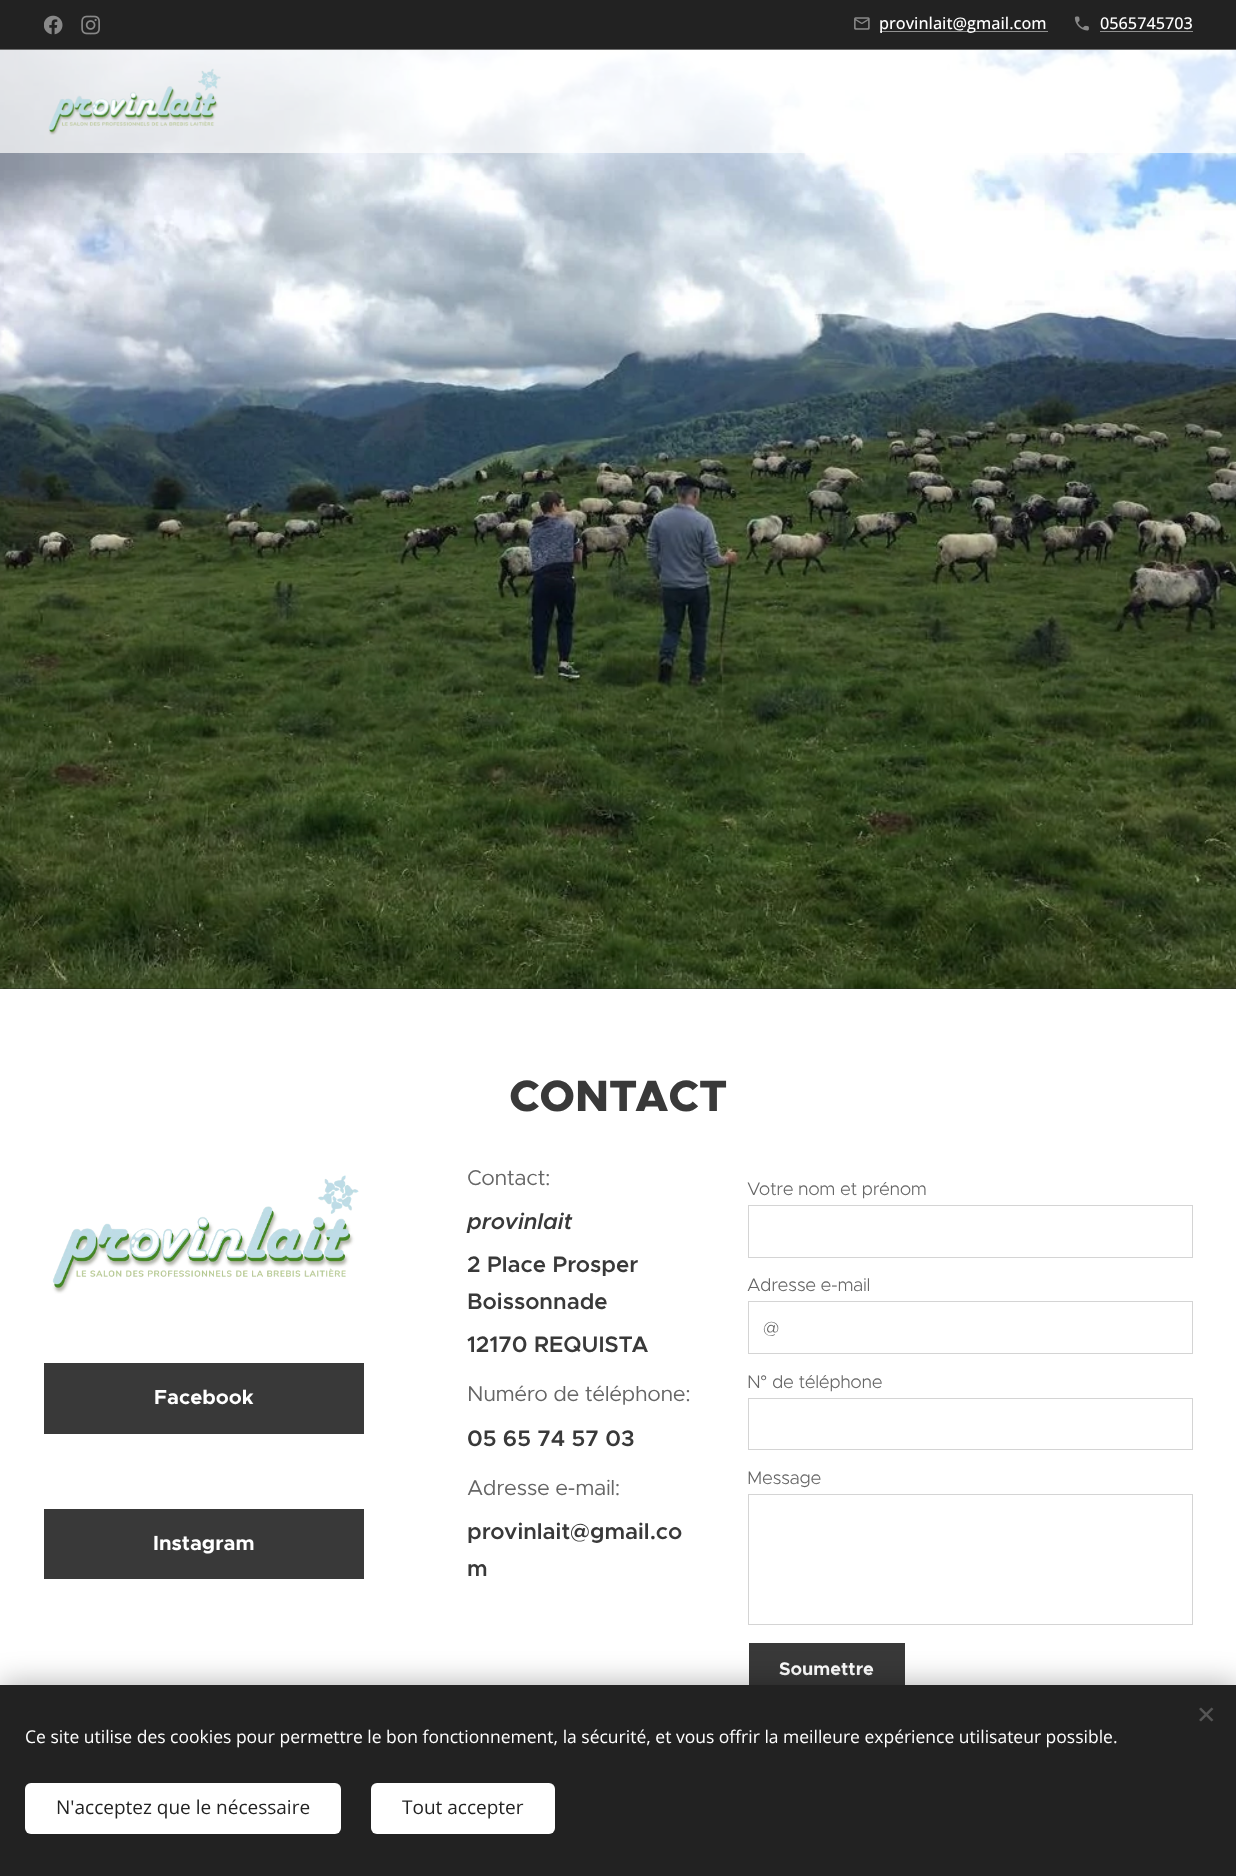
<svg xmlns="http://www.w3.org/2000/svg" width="1236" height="1876">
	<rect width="100%" height="100%" fill="#FFFFFF" />
	<rect x="0" y="0" width="1236" height="49" fill="#222222" />
	<image x="44" y="15" width="19" height="20" href="assets/img1.png" />
	<image x="81" y="15" width="19" height="20" href="assets/img2.png" />
	<image x="854" y="17" width="16" height="13" href="assets/img3.png" />
	<rect x="880" y="31" width="168" height="1" fill="#919191" />
	<text x="879" y="29" font-family="Open Sans" font-size="16.25" font-weight="500" fill="#FFFFFF">provinlait@gmail.com</text>
	<image x="1074" y="16" width="15" height="15" href="assets/img4.png" />
	<text x="1100" y="29" font-family="Open Sans" font-size="16.25" font-weight="500" fill="#FFFFFF">0565745703</text>
	<rect x="1100" y="31" width="93" height="1" fill="#919191" />
	<rect x="0" y="49" width="1236" height="1" fill="#6E6E6E" />
	<rect x="0" y="988" width="1236" height="1" fill="#272727" />
	<image x="0" y="50" width="1236" height="939" href="assets/img6.png" />
	<rect x="0" y="50" width="1236" height="103" fill="#FFFFFF" fill-opacity="0.7" />
	<image x="48" y="68" width="173" height="67" href="assets/img5.png" />
	<text x="509" y="1111" font-family="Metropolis" font-size="44" font-weight="800" fill="#393939">CONTACT</text>
	<image x="52" y="1175" width="307" height="119" href="assets/img7.png" />
	<rect x="44" y="1363" width="320" height="71" fill="#393939" />
	<text x="154" y="1404" font-family="Metropolis" font-size="20.5" font-weight="700" fill="#FFFFFF">Facebook</text>
	<rect x="44" y="1509" width="320" height="70" fill="#393939" />
	<text x="153" y="1550" font-family="Metropolis" font-size="20.5" font-weight="700" fill="#FFFFFF">Instagram</text>
	<text x="467" y="1185" font-family="Metropolis" font-size="21.5" letter-spacing="-0.4" fill="#666666">Contact:</text>
	<text x="467" y="1229" font-family="Metropolis" font-size="22.5" font-weight="600" font-style="italic" fill="#393939">provinlait</text>
	<g font-family="Metropolis" font-size="22.5" font-weight="600" fill="#393939">
		<text x="467" y="1272">2 Place Prosper</text>
		<text x="467" y="1309">Boissonnade</text>
		<text x="467" y="1352">12170 REQUISTA</text>
	</g>
	<text x="467" y="1401" font-family="Metropolis" font-size="21.5" letter-spacing="-0.4" fill="#666666">Numéro de téléphone:</text>
	<text x="467" y="1446" font-family="Metropolis" font-size="22.5" font-weight="600" fill="#393939">05 65 74 57 03</text>
	<text x="467" y="1495" font-family="Metropolis" font-size="21.5" letter-spacing="-0.4" fill="#666666">Adresse e-mail:</text>
	<g font-family="Metropolis" font-size="22.5" font-weight="600" fill="#393939">
		<text x="467" y="1539">provinlait@gmail.co</text>
		<text x="467" y="1576">m</text>
	</g>
	<text x="747" y="1195" font-family="Metropolis" font-size="18.25" font-weight="300" letter-spacing="-0.4" fill="#666666">Votre nom et prénom</text>
	<rect x="748.5" y="1205.5" width="444" height="52" fill="none" stroke="#D4D4D4" />
	<text x="747" y="1291" font-family="Metropolis" font-size="18.25" font-weight="300" letter-spacing="-0.4" fill="#666666">Adresse e-mail</text>
	<rect x="748.5" y="1301.5" width="444" height="52" fill="none" stroke="#D4D4D4" />
	<text x="763" y="1334" font-family="Metropolis" font-size="18.25" font-weight="300" fill="#666666">@</text>
	<text x="747" y="1388" font-family="Metropolis" font-size="18.25" font-weight="300" letter-spacing="-0.4" fill="#666666">N</text>
	<text x="760" y="1388" font-family="Liberation Sans" font-size="18.25" letter-spacing="-0.4" fill="#666666">°</text>
	<text x="772" y="1388" font-family="Metropolis" font-size="18.25" font-weight="300" letter-spacing="-0.4" fill="#666666">de téléphone</text>
	<rect x="748.5" y="1398.5" width="444" height="51" fill="none" stroke="#D4D4D4" />
	<text x="747" y="1484" font-family="Metropolis" font-size="18.25" font-weight="300" letter-spacing="-0.4" fill="#666666">Message</text>
	<rect x="748.5" y="1494.5" width="444" height="130" fill="none" stroke="#D4D4D4" />
	<rect x="749" y="1643" width="156" height="42" fill="#393939" />
	<text x="779" y="1675" font-family="Metropolis" font-size="18.25" font-weight="700" fill="#FFFFFF">Soumettre</text>
	<rect x="0" y="1685" width="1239" height="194" fill="#000000" fill-opacity="0.33" filter="blur(15.5px)" />
	<rect x="0" y="1685" width="1236" height="191" fill="#222222" />
	<path d="M1199 1720L1211.5 1707.5L1213.5 1709L1201 1721.5Z" fill="#555555" />
	<path d="M1201 1707.5L1213.5 1720L1211.5 1721.5L1199 1709Z" fill="#555555" />
	<text x="25" y="1743" font-family="Open Sans" font-size="17.5" fill="#FFFFFF">Ce site utilise des cookies pour permettre le bon fonctionnement, la sécurité, et vous offrir la meilleure expérience utilisateur possible.</text>
	<rect x="25" y="1783" width="316" height="51" rx="6" fill="#FFFFFF" />
	<text x="56" y="1814" font-family="Open Sans" font-size="19" fill="#222222">N'acceptez que le nécessaire</text>
	<rect x="371" y="1783" width="184" height="51" rx="6" fill="#FFFFFF" />
	<text x="402" y="1814" font-family="Open Sans" font-size="19" fill="#222222">Tout accepter</text>
</svg>
